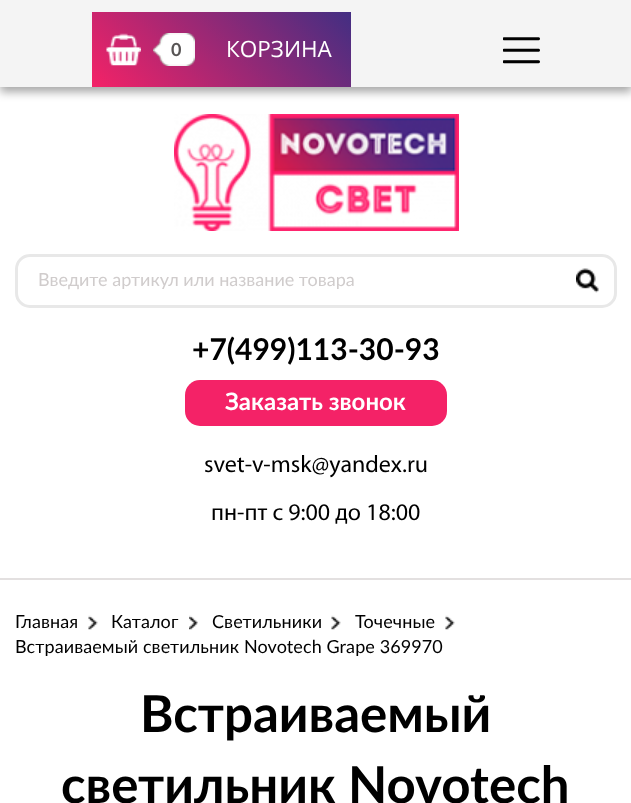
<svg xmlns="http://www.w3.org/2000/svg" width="631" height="803">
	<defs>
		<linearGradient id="g1" gradientUnits="userSpaceOnUse" x1="138" y1="133" x2="305" y2="-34"><stop offset="0" stop-color="#F42267" /><stop offset="0.99" stop-color="#442E82" /><stop offset="1" stop-color="#442E82" /></linearGradient>
	</defs>
	<rect width="100%" height="100%" fill="#FFFFFF" />
	<rect x="0" y="5" width="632" height="87" fill="#000000" fill-opacity="0.35" filter="blur(5px)" />
	<rect x="0" y="0" width="631" height="87" fill="#F4F4F4" />
	<rect x="92" y="12" width="259" height="75" fill="url(#g1)" />
	<image x="106" y="33" width="35" height="33" href="assets/img1.png" />
	<image x="153" y="33" width="42" height="33" href="assets/img2.png" />
	<text x="171" y="56" font-family="Lato" font-size="18" font-weight="700" fill="#585555">0</text>
	<text x="226" y="57" font-family="Open Sans" font-size="22.5" fill="#FFFFFF">КОРЗИНА</text>
	<image x="503" y="37" width="37" height="27" href="assets/img3.png" />
	<image x="174" y="114" width="285" height="117" href="assets/img4.png" />
	<rect x="16.5" y="255.5" width="599" height="51" rx="13.5" fill="none" stroke="#E8E8E8" stroke-width="3" />
	<text x="38" y="286" font-family="Lato" font-size="18" fill="#D0CCCC">Введите артикул или название товара</text>
	<image x="576" y="268" width="23" height="25" href="assets/img5.png" />
	<text x="192" y="360" font-family="Lato" font-size="30" font-weight="700" fill="#000000">+7(499)113-30-93</text>
	<rect x="185" y="380" width="262" height="46" rx="15" fill="#F42267" />
	<text x="225" y="410" font-family="Lato" font-size="24" font-weight="700" fill="#FFFFFF">Заказать звонок</text>
	<g font-family="Myriad" font-size="24" fill="#000000">
		<text x="204" y="472">svet-v-msk@yandex.ru</text>
		<text x="211" y="520">пн-пт с 9:00 до 18:00</text>
	</g>
	<rect x="0" y="578" width="631" height="2" fill="#E3E0E0" />
	<text x="15" y="628" font-family="Lato" font-size="18" letter-spacing="0.1" fill="#000000">Главная</text>
	<image x="88" y="615" width="10" height="15" href="assets/img6.png" />
	<text x="111" y="628" font-family="Lato" font-size="18" letter-spacing="0.1" fill="#000000">Каталог</text>
	<image x="189" y="615" width="9" height="15" href="assets/img7.png" />
	<text x="212" y="628" font-family="Lato" font-size="18" letter-spacing="0.1" fill="#000000">Светильники</text>
	<image x="331" y="615" width="10" height="15" href="assets/img6.png" />
	<text x="355" y="628" font-family="Lato" font-size="18" letter-spacing="0.1" fill="#000000">Точечные</text>
	<image x="445" y="615" width="10" height="15" href="assets/img6.png" />
	<text x="15" y="653" font-family="Lato" font-size="18" letter-spacing="0.1" fill="#000000">Встраиваемый светильник Novotech Grape 369970</text>
	<g font-family="Lato" font-size="51" font-weight="700" fill="#000000">
		<text x="140" y="732">Встраиваемый</text>
		<text x="61" y="803">светильник Novotech</text>
	</g>
</svg>
